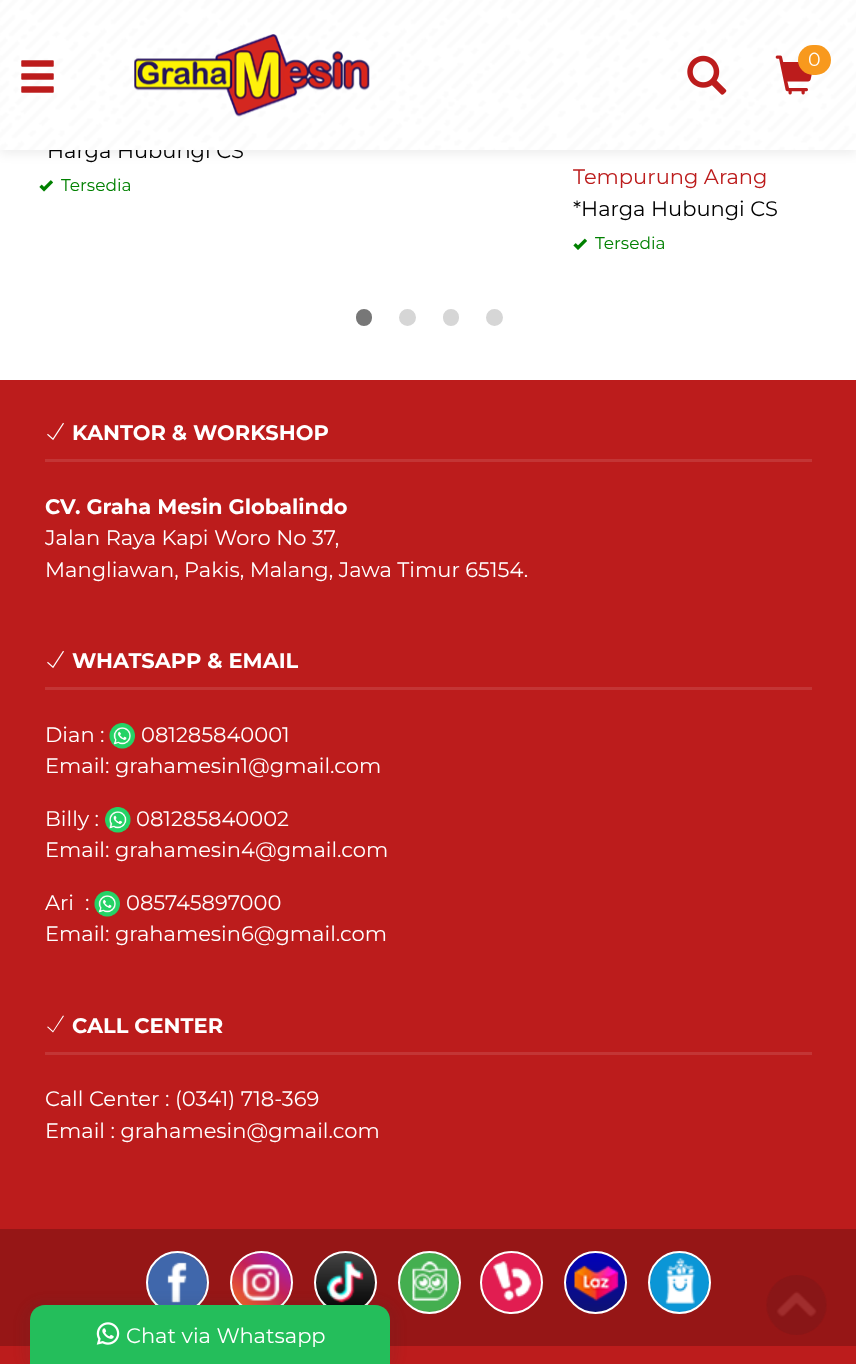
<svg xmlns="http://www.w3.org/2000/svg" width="856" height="1364">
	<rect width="100%" height="100%" fill="#FFFFFF" />
	<rect x="0" y="-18" width="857" height="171" fill="#000000" fill-opacity="0.08" filter="blur(6px)" />
	<text x="47" y="158" font-family="Montserrat" font-size="21" fill="#020202">Harga Hubungi CS</text>
	<image x="0" y="0" width="856" height="150" href="assets/img1.png" />
	<image x="21" y="60" width="33" height="33" href="assets/img2.png" />
	<image x="134" y="34" width="236" height="83" href="assets/img3.png" />
	<image x="687" y="55" width="40" height="40" href="assets/img4.png" />
	<image x="775" y="55" width="37" height="40" href="assets/img5.png" />
	<rect x="798" y="45" width="33" height="30" rx="15" fill="#F8991D" />
	<text x="808" y="66" font-family="Montserrat" font-size="19" fill="#FFFFFF">0</text>
	<image x="39" y="180" width="14" height="12" href="assets/img6.png" />
	<text x="61" y="191" font-family="Montserrat" font-size="17" fill="#008000">Tersedia</text>
	<text x="573" y="184" font-family="Montserrat" font-size="21" fill="#BC1C1C">Tempurung Arang</text>
	<text x="573" y="216" font-family="Montserrat" font-size="21" fill="#020202">*Harga Hubungi CS</text>
	<image x="573" y="238" width="14" height="12" href="assets/img7.png" />
	<text x="595" y="249" font-family="Montserrat" font-size="17" fill="#008000">Tersedia</text>
	<rect x="354.5" y="307.5" width="19" height="20" rx="9.5" fill="#777777" stroke="#FFFFFF" stroke-width="3" />
	<circle cx="407.5" cy="317.5" r="10" fill="#D6D6D6" stroke="#FFFFFF" stroke-width="3" />
	<rect x="441.5" y="307.5" width="19" height="20" rx="9.5" fill="#D6D6D6" stroke="#FFFFFF" stroke-width="3" />
	<circle cx="494.5" cy="317.5" r="10" fill="#D6D6D6" stroke="#FFFFFF" stroke-width="3" />
	<rect x="0" y="380" width="856" height="984" fill="#BC1C1C" />
	<rect x="45" y="459" width="767" height="3" fill="#C33535" />
	<image x="47" y="422" width="17" height="19" href="assets/img8.png" />
	<g font-family="Montserrat" font-size="21" font-weight="700" fill="#FFFFFF">
		<text x="72" y="440">KANTOR &amp; WORKSHOP</text>
		<text x="45" y="514">CV. Graha Mesin Globalindo</text>
	</g>
	<g font-family="Montserrat" font-size="21" fill="#FFFFFF">
		<text x="45" y="545">Jalan Raya Kapi Woro No 37,</text>
		<text x="45" y="577">Mangliawan, Pakis, Malang, Jawa Timur 65154.</text>
	</g>
	<rect x="45" y="687" width="767" height="3" fill="#C33535" />
	<image x="47" y="650" width="17" height="19" href="assets/img8.png" />
	<text x="72" y="668" font-family="Montserrat" font-size="21" font-weight="700" fill="#FFFFFF">WHATSAPP &amp; EMAIL</text>
	<text x="45" y="742" font-family="Montserrat" font-size="21" fill="#FFFFFF">Dian :</text>
	<image x="109" y="723" width="26" height="26" href="assets/img9.png" />
	<g font-family="Montserrat" font-size="21" fill="#FFFFFF">
		<text x="141" y="742">081285840001</text>
		<text x="45" y="773">Email: grahamesin1@gmail.com</text>
		<text x="45" y="826">Billy :</text>
	</g>
	<image x="105" y="807" width="26" height="26" href="assets/img10.png" />
	<g font-family="Montserrat" font-size="21" fill="#FFFFFF">
		<text x="136" y="826">081285840002</text>
		<text x="45" y="857">Email: grahamesin4@gmail.com</text>
		<text x="45" y="910" xml:space="preserve">Ari  :</text>
	</g>
	<image x="94" y="891" width="26" height="26" href="assets/img9.png" />
	<g font-family="Montserrat" font-size="21" fill="#FFFFFF">
		<text x="126" y="910">085745897000</text>
		<text x="45" y="941">Email: grahamesin6@gmail.com</text>
	</g>
	<rect x="45" y="1052" width="767" height="3" fill="#C33535" />
	<path d="M64 1016L53 1032.5L47 1027L48 1026.5L53 1031L63 1015.5Z" fill="#FFFFFF" />
	<text x="72" y="1033" font-family="Montserrat" font-size="21" font-weight="700" fill="#FFFFFF">CALL CENTER</text>
	<g font-family="Montserrat" font-size="21" fill="#FFFFFF">
		<text x="45" y="1106">Call Center : (0341) 718-369</text>
		<text x="45" y="1138">Email : grahamesin@gmail.com</text>
	</g>
	<rect x="0" y="1229" width="856" height="117" fill="#961616" />
	<image x="146" y="1252" width="62" height="53" href="assets/img11.png" />
	<circle cx="177.5" cy="1282.5" r="30.5" fill="none" stroke="#FFFFFF" stroke-width="2" />
	<image x="230" y="1252" width="62" height="53" href="assets/img12.png" />
	<circle cx="261.5" cy="1282.5" r="30.5" fill="none" stroke="#FFFFFF" stroke-width="2" />
	<image x="314" y="1252" width="62" height="53" href="assets/img13.png" />
	<circle cx="345.5" cy="1282.5" r="30.5" fill="none" stroke="#FFFFFF" stroke-width="2" />
	<image x="399" y="1252" width="61" height="61" href="assets/img14.png" />
	<circle cx="429.5" cy="1282.5" r="30.5" fill="none" stroke="#FFFFFF" stroke-width="2" />
	<image x="481" y="1252" width="61" height="61" href="assets/img15.png" />
	<circle cx="511.5" cy="1282.5" r="30.5" fill="none" stroke="#FFFFFF" stroke-width="2" />
	<image x="565" y="1252" width="61" height="61" href="assets/img16.png" />
	<circle cx="595.5" cy="1282.5" r="30.5" fill="none" stroke="#FFFFFF" stroke-width="2" />
	<image x="649" y="1252" width="61" height="61" href="assets/img17.png" />
	<circle cx="679.5" cy="1282.5" r="30.5" fill="none" stroke="#FFFFFF" stroke-width="2" />
	<image x="766" y="1275" width="61" height="60" href="assets/img18.png" />
	<rect x="21" y="1299" width="378" height="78" rx="24" fill="#333333" fill-opacity="0.07" filter="blur(4.5px)" />
	<path d="M45 1305H375C383.5 1305 390 1311.5 390 1320V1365H30V1320C30 1311.5 36.5 1305 45 1305Z" fill="#24BE5B" />
	<image x="96" y="1322" width="24" height="23" href="assets/img19.png" />
	<text x="126" y="1343" font-family="Montserrat" font-size="21" fill="#FFFFFF">Chat via Whatsapp</text>
</svg>
